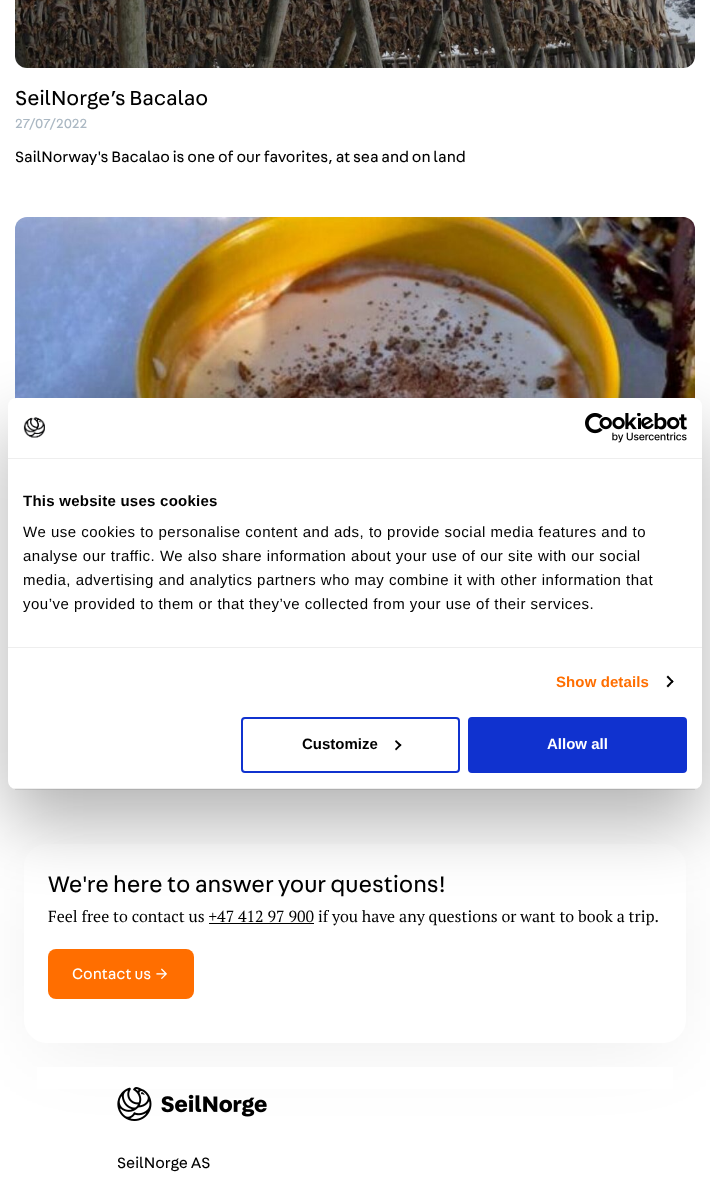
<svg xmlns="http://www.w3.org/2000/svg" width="710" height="1186">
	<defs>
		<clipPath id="clip1"><path d="M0 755H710V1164H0ZM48 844H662C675.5 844 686 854.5 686 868V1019C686 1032.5 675.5 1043 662 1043H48C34.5 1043 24 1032.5 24 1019V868C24 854.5 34.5 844 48 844Z" clip-rule="evenodd" /></clipPath>
		<clipPath id="clip2"><rect x="8" y="398" width="694" height="391" rx="8" /></clipPath>
	</defs>
	<rect width="100%" height="100%" fill="#FFFFFF" />
	<image x="15" y="0" width="680" height="68" href="assets/img1.png" />
	<text x="15" y="105" font-family="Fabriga" font-size="21.5" fill="#000000">SeilNorge’s Bacalao</text>
	<text x="15" y="128" font-family="Fabriga" font-size="14" fill="#ABB8C3">27/07/2022</text>
	<text x="15" y="162" font-family="Fabriga" font-size="16" fill="#000000">SailNorway's Bacalao is one of our favorites, at sea and on land</text>
	<image x="15" y="217" width="680" height="182" href="assets/img2.png" />
	<g clip-path="url(#clip1)">
		<rect x="40" y="876" width="630" height="167" rx="8" fill="#000000" fill-opacity="0.08" filter="blur(40px)" />
	</g>
	<rect x="15" y="789" width="680" height="1" fill="#E9E9E9" />
	<rect x="209" y="923" width="105" height="1" fill="#000000" />
	<rect x="8" y="430" width="694" height="391" rx="8" fill="#000000" fill-opacity="0.3" filter="blur(34px)" />
	<rect x="8" y="398" width="694" height="391" rx="8" fill="#FFFFFF" />
	<rect x="8" y="458" width="694" height="1" fill="#EEEEEE" />
	<image x="23" y="417" width="22" height="21" href="assets/img3.png" />
	<image x="585" y="413" width="102" height="30" href="assets/img4.png" />
	<rect x="8" y="647" width="694" height="1" fill="#EEEEEE" />
	<text x="23" y="506" font-family="Liberation Sans" font-size="15" font-weight="700" letter-spacing="0.25" fill="#000000">This website uses cookies</text>
	<g font-family="Liberation Sans" font-size="15" letter-spacing="0.5" fill="#000000">
		<text x="23" y="537">We use cookies to personalise content and ads, to provide social media features and to</text>
		<text x="23" y="561">analyse our traffic. We also share information about your use of our site with our social</text>
		<text x="23" y="585">media, advertising and analytics partners who may combine it with other information that</text>
		<text x="23" y="609">you’ve provided to them or that they’ve collected from your use of their services.</text>
	</g>
	<text x="556" y="687" font-family="Liberation Sans" font-size="15" font-weight="700" letter-spacing="0.1" fill="#FF6E00">Show details</text>
	<path d="M668 675.5L673.5 681.5L672.5 683L666.5 677Z" fill="#000000" />
	<path d="M672.5 680L673.5 681.5L668 687.5L666.5 686Z" fill="#000000" />
	<g clip-path="url(#clip2)">
		<rect x="8" y="788" width="694" height="1" fill="#EEEEEE" />
	</g>
	<rect x="242" y="718" width="217" height="54" rx="3" fill="none" stroke="#1032CF" stroke-width="2" />
	<text x="302" y="749" font-family="Liberation Sans" font-size="15" font-weight="700" fill="#000000">Customize</text>
	<path d="M396 740L401.5 745L400 746.5L395 741.5Z" fill="#000000" />
	<path d="M400 744L401.5 745L396 750.5L395 749Z" fill="#000000" />
	<rect x="469" y="718" width="217" height="54" rx="3" fill="#1032CF" stroke="#1032CF" stroke-width="2" />
	<text x="547" y="749" font-family="Liberation Sans" font-size="15" font-weight="700" fill="#FFFFFF">Allow all</text>
	<text x="48" y="892" font-family="Fabriga" font-size="24" fill="#000000">We're here to answer your questions!</text>
	<text x="48" y="922" font-family="PT Serif" font-size="16" fill="#000000">Feel free to contact us +47 412 97 900 if you have any questions or want to book a trip.</text>
	<rect x="48" y="949" width="146" height="50" rx="8" fill="#FF6E00" />
	<text x="72" y="979" font-family="Fabriga" font-size="16" fill="#FFFFFF">Contact us →</text>
	<rect x="37" y="1067" width="636" height="22" fill="#FFFFFF" />
	<image x="117" y="1087" width="150" height="34" href="assets/img5.png" />
	<text x="117" y="1168" font-family="Fabriga" font-size="16" fill="#000000">SeilNorge AS</text>
</svg>
